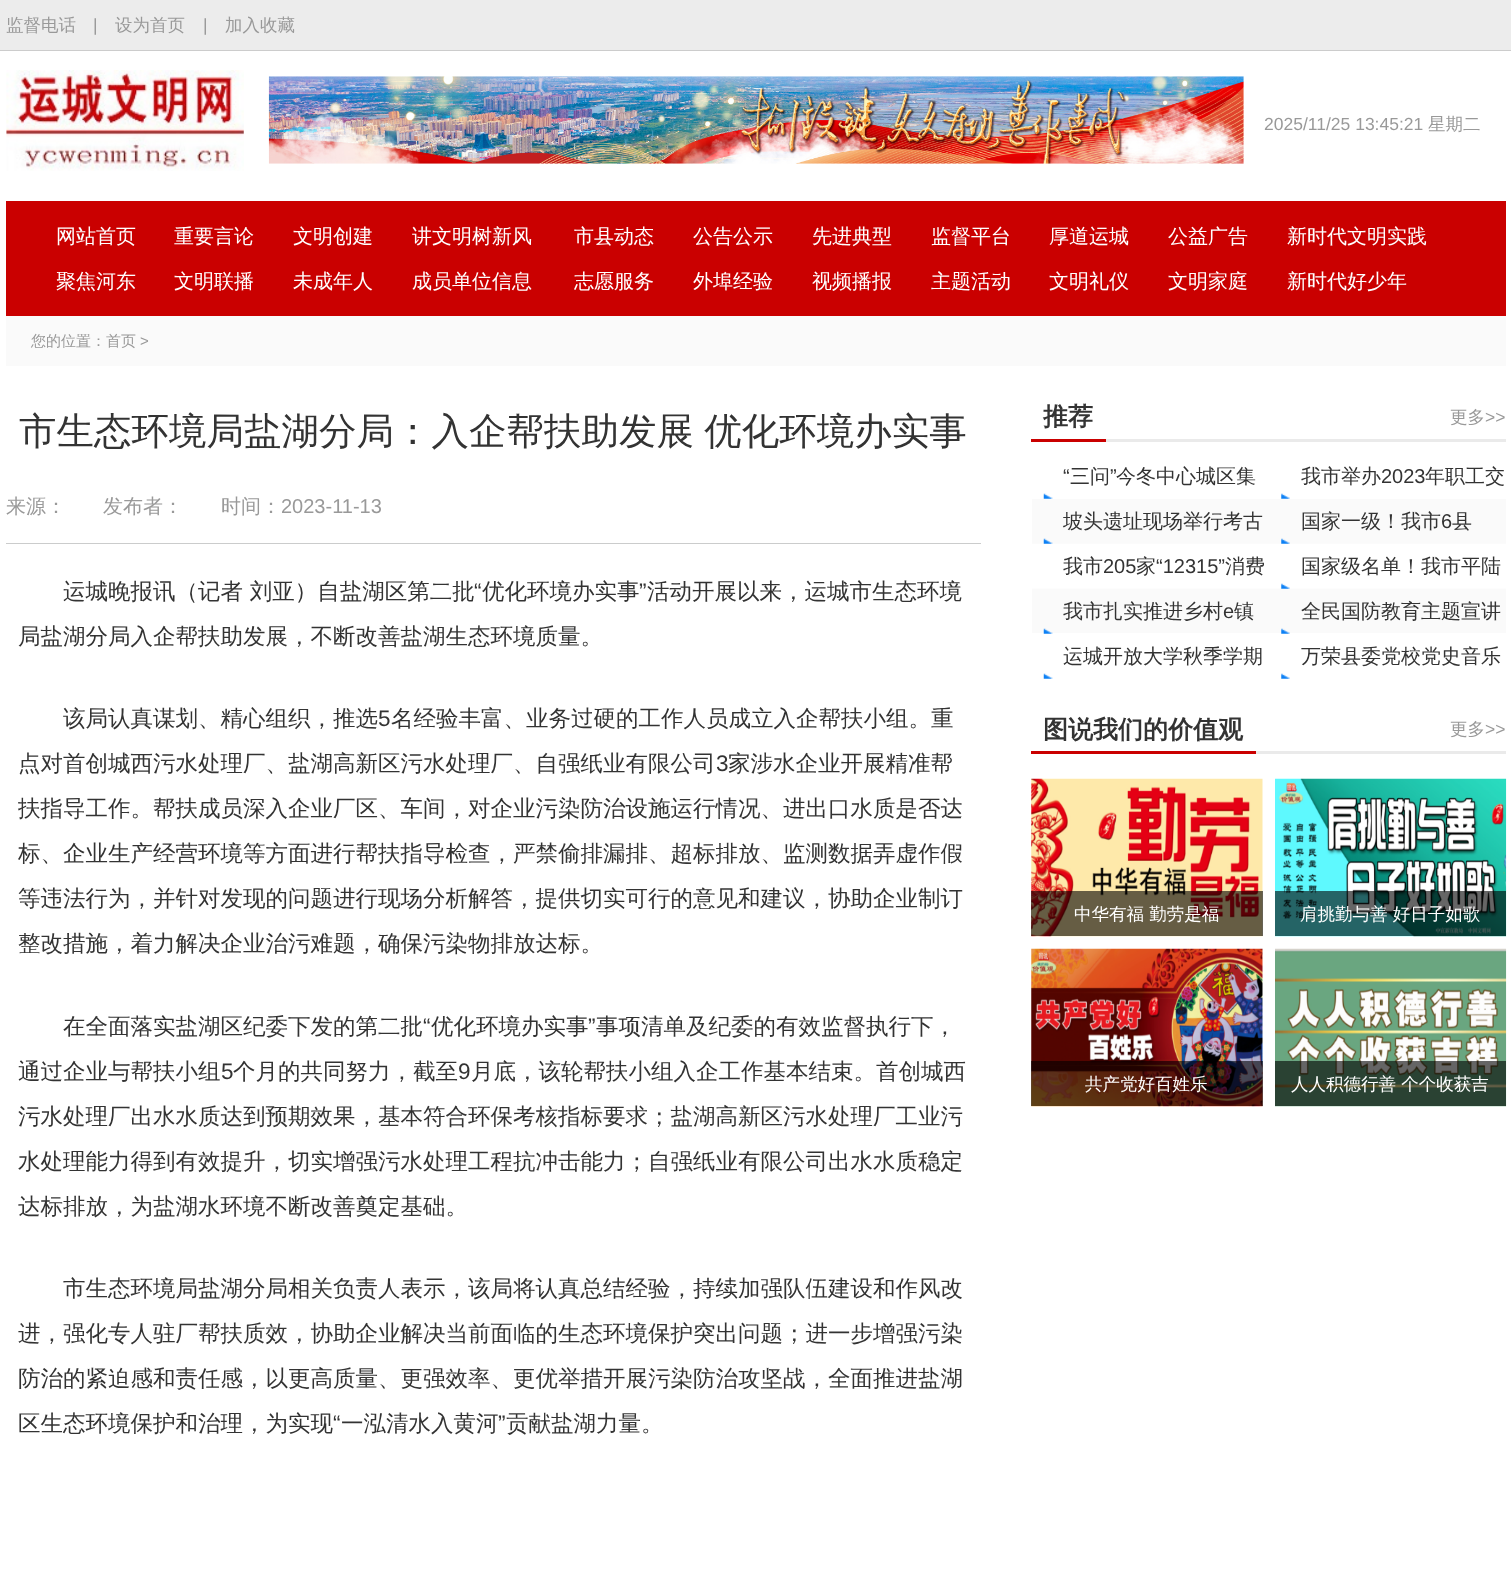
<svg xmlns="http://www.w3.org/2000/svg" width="1511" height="1574">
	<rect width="100%" height="100%" fill="#FFFFFF" />
	<rect x="0" y="0" width="1511" height="50" fill="#ECECEC" />
	<rect x="0" y="50" width="1511" height="1" fill="#CCCCCC" />
	<text x="6" y="31" font-family="WenQuanYi Zen Hei" font-size="17.5" font-weight="500" fill="#999999">监督电话</text>
	<text x="93" y="31" font-family="Liberation Sans" font-size="17.5" fill="#999999">|</text>
	<text x="115" y="31" font-family="WenQuanYi Zen Hei" font-size="17.5" font-weight="500" fill="#999999">设为首页</text>
	<text x="203" y="31" font-family="Liberation Sans" font-size="17.5" fill="#999999">|</text>
	<text x="225" y="31" font-family="WenQuanYi Zen Hei" font-size="17.5" font-weight="500" fill="#999999">加入收藏</text>
	<image x="6" y="70" width="238" height="101" href="assets/img1.png" />
	<image x="268" y="76" width="976" height="88" href="assets/img2.png" />
	<text x="1264" y="130" font-family="Liberation Sans" font-size="17.5" fill="#999999">2025/11/25 13:45:21</text>
	<text x="1428" y="130" font-family="WenQuanYi Zen Hei" font-size="17.5" font-weight="500" fill="#999999">星期二</text>
	<rect x="6" y="201" width="1500" height="115" fill="#CA0000" />
	<g font-family="WenQuanYi Zen Hei" font-size="20" font-weight="500" fill="#FFFFFF">
		<text x="56" y="243">网站首页</text>
		<text x="56" y="288">聚焦河东</text>
		<text x="174" y="243">重要言论</text>
		<text x="174" y="288">文明联播</text>
		<text x="293" y="243">文明创建</text>
		<text x="293" y="288">未成年人</text>
		<text x="412" y="243">讲文明树新风</text>
		<text x="412" y="288">成员单位信息</text>
		<text x="574" y="243">市县动态</text>
		<text x="574" y="288">志愿服务</text>
		<text x="693" y="243">公告公示</text>
		<text x="693" y="288">外埠经验</text>
		<text x="812" y="243">先进典型</text>
		<text x="812" y="288">视频播报</text>
		<text x="931" y="243">监督平台</text>
		<text x="931" y="288">主题活动</text>
		<text x="1049" y="243">厚道运城</text>
		<text x="1049" y="288">文明礼仪</text>
		<text x="1168" y="243">公益广告</text>
		<text x="1168" y="288">文明家庭</text>
		<text x="1287" y="243">新时代文明实践</text>
		<text x="1287" y="288">新时代好少年</text>
	</g>
	<rect x="6" y="316" width="1500" height="50" fill="#FAFAFA" />
	<text x="31" y="346" font-family="WenQuanYi Zen Hei" font-size="15" font-weight="500" fill="#999999">您的位置：首页</text>
	<text x="140" y="346" font-family="Liberation Sans" font-size="15" fill="#999999">&gt;</text>
	<rect x="6" y="543" width="975" height="1" fill="#CBCCCC" />
	<text x="19" y="444" word-spacing="-1" font-family="WenQuanYi Zen Hei" font-size="37.5" font-weight="500" fill="#333333">市生态环境局盐湖分局：入企帮扶助发展 优化环境办实事</text>
	<g font-family="WenQuanYi Zen Hei" font-size="20" font-weight="500" fill="#999999">
		<text x="6" y="513">来源：</text>
		<text x="103" y="513">发布者：</text>
		<text x="221" y="513">时间：</text>
	</g>
	<text x="281" y="513" font-family="Liberation Sans" font-size="20" fill="#999999">2023-11-13</text>
	<text x="63" y="599" font-family="WenQuanYi Zen Hei" font-size="22.5" font-weight="500" fill="#333333">运城晚报讯（记者 刘亚）自盐湖区第二批</text>
	<text x="474" y="599" font-family="Liberation Sans" font-size="22.5" fill="#333333">“</text>
	<text x="482" y="599" font-family="WenQuanYi Zen Hei" font-size="22.5" font-weight="500" fill="#333333">优化环境办实事</text>
	<text x="639" y="599" font-family="Liberation Sans" font-size="22.5" fill="#333333">”</text>
	<g font-family="WenQuanYi Zen Hei" font-size="22.5" font-weight="500" fill="#333333">
		<text x="647" y="599">活动开展以来，运城市生态环境</text>
		<text x="18" y="644">局盐湖分局入企帮扶助发展，不断改善盐湖生态环境质量。</text>
		<text x="63" y="726">该局认真谋划、精心组织，推选</text>
	</g>
	<text x="378" y="726" font-family="Liberation Sans" font-size="22.5" fill="#333333">5</text>
	<g font-family="WenQuanYi Zen Hei" font-size="22.5" font-weight="500" fill="#333333">
		<text x="391" y="726">名经验丰富、业务过硬的工作人员成立入企帮扶小组。重</text>
		<text x="18" y="771">点对首创城西污水处理厂、盐湖高新区污水处理厂、自强纸业有限公司</text>
	</g>
	<text x="716" y="771" font-family="Liberation Sans" font-size="22.5" fill="#333333">3</text>
	<g font-family="WenQuanYi Zen Hei" font-size="22.5" font-weight="500" fill="#333333">
		<text x="728" y="771">家涉水企业开展精准帮</text>
		<text x="18" y="816">扶指导工作。帮扶成员深入企业厂区、车间，对企业污染防治设施运行情况、进出口水质是否达</text>
		<text x="18" y="861">标、企业生产经营环境等方面进行帮扶指导检查，严禁偷排漏排、超标排放、监测数据弄虚作假</text>
		<text x="18" y="906">等违法行为，并针对发现的问题进行现场分析解答，提供切实可行的意见和建议，协助企业制订</text>
		<text x="18" y="951">整改措施，着力解决企业治污难题，确保污染物排放达标。</text>
		<text x="63" y="1034">在全面落实盐湖区纪委下发的第二批</text>
	</g>
	<text x="423" y="1034" font-family="Liberation Sans" font-size="22.5" fill="#333333">“</text>
	<text x="431" y="1034" font-family="WenQuanYi Zen Hei" font-size="22.5" font-weight="500" fill="#333333">优化环境办实事</text>
	<text x="588" y="1034" font-family="Liberation Sans" font-size="22.5" fill="#333333">”</text>
	<g font-family="WenQuanYi Zen Hei" font-size="22.5" font-weight="500" fill="#333333">
		<text x="596" y="1034">事项清单及纪委的有效监督执行下，</text>
		<text x="18" y="1079">通过企业与帮扶小组</text>
	</g>
	<text x="221" y="1079" font-family="Liberation Sans" font-size="22.5" fill="#333333">5</text>
	<text x="233" y="1079" font-family="WenQuanYi Zen Hei" font-size="22.5" font-weight="500" fill="#333333">个月的共同努力，截至</text>
	<text x="458" y="1079" font-family="Liberation Sans" font-size="22.5" fill="#333333">9</text>
	<g font-family="WenQuanYi Zen Hei" font-size="22.5" font-weight="500" fill="#333333">
		<text x="471" y="1079">月底，该轮帮扶小组入企工作基本结束。首创城西</text>
		<text x="18" y="1124">污水处理厂出水水质达到预期效果，基本符合环保考核指标要求；盐湖高新区污水处理厂工业污</text>
		<text x="18" y="1169">水处理能力得到有效提升，切实增强污水处理工程抗冲击能力；自强纸业有限公司出水水质稳定</text>
		<text x="18" y="1214">达标排放，为盐湖水环境不断改善奠定基础。</text>
		<text x="63" y="1296">市生态环境局盐湖分局相关负责人表示，该局将认真总结经验，持续加强队伍建设和作风改</text>
		<text x="18" y="1341">进，强化专人驻厂帮扶质效，协助企业解决当前面临的生态环境保护突出问题；进一步增强污染</text>
		<text x="18" y="1386">防治的紧迫感和责任感，以更高质量、更强效率、更优举措开展污染防治攻坚战，全面推进盐湖</text>
		<text x="18" y="1431">区生态环境保护和治理，为实现</text>
	</g>
	<text x="333" y="1431" font-family="Liberation Sans" font-size="22.5" fill="#333333">“</text>
	<text x="341" y="1431" font-family="WenQuanYi Zen Hei" font-size="22.5" font-weight="500" fill="#333333">一泓清水入黄河</text>
	<text x="498" y="1431" font-family="Liberation Sans" font-size="22.5" fill="#333333">”</text>
	<text x="506" y="1431" font-family="WenQuanYi Zen Hei" font-size="22.5" font-weight="500" fill="#333333">贡献盐湖力量。</text>
	<text x="1043" y="425" font-family="WenQuanYi Zen Hei" font-size="25" font-weight="700" fill="#333333">推荐</text>
	<rect x="1031" y="439" width="75" height="3" fill="#CA0000" />
	<text x="1450" y="423" font-family="WenQuanYi Zen Hei" font-size="17.5" font-weight="500" fill="#999999">更多</text>
	<text x="1485" y="423" font-family="Liberation Sans" font-size="17.5" fill="#999999">&gt;&gt;</text>
	<rect x="1106" y="439" width="400" height="3" fill="#EAEAEA" />
	<image x="1032" y="499" width="474" height="134" href="assets/img3.png" />
	<image x="1043" y="493" width="10" height="6" href="assets/img4.png" />
	<text x="1063" y="483" font-family="Liberation Sans" font-size="20" fill="#333333">“</text>
	<text x="1070" y="483" font-family="WenQuanYi Zen Hei" font-size="20" font-weight="500" fill="#333333">三问</text>
	<text x="1110" y="483" font-family="Liberation Sans" font-size="20" fill="#333333">”</text>
	<text x="1116" y="483" font-family="WenQuanYi Zen Hei" font-size="20" font-weight="500" fill="#333333">今冬中心城区集</text>
	<image x="1281" y="493" width="9" height="6" href="assets/img5.png" />
	<text x="1301" y="483" font-family="WenQuanYi Zen Hei" font-size="20" font-weight="500" fill="#333333">我市举办</text>
	<text x="1381" y="483" font-family="Liberation Sans" font-size="20" fill="#333333">2023</text>
	<text x="1425" y="483" font-family="WenQuanYi Zen Hei" font-size="20" font-weight="500" fill="#333333">年职工交</text>
	<image x="1043" y="538" width="10" height="6" href="assets/img6.png" />
	<text x="1063" y="528" font-family="WenQuanYi Zen Hei" font-size="20" font-weight="500" fill="#333333">坡头遗址现场举行考古</text>
	<image x="1281" y="538" width="9" height="6" href="assets/img7.png" />
	<text x="1301" y="528" font-family="WenQuanYi Zen Hei" font-size="20" font-weight="500" fill="#333333">国家一级！我市</text>
	<text x="1441" y="528" font-family="Liberation Sans" font-size="20" fill="#333333">6</text>
	<g font-family="WenQuanYi Zen Hei" font-size="20" font-weight="500" fill="#333333">
		<text x="1452" y="528">县</text>
		<text x="1063" y="573">我市</text>
	</g>
	<text x="1103" y="573" font-family="Liberation Sans" font-size="20" fill="#333333">205</text>
	<text x="1136" y="573" font-family="WenQuanYi Zen Hei" font-size="20" font-weight="500" fill="#333333">家</text>
	<text x="1156" y="573" font-family="Liberation Sans" font-size="20" fill="#333333">“12315”</text>
	<text x="1225" y="573" font-family="WenQuanYi Zen Hei" font-size="20" font-weight="500" fill="#333333">消费</text>
	<image x="1281" y="583" width="9" height="6" href="assets/img8.png" />
	<text x="1301" y="573" font-family="WenQuanYi Zen Hei" font-size="20" font-weight="500" fill="#333333">国家级名单！我市平陆</text>
	<image x="1043" y="628" width="10" height="6" href="assets/img9.png" />
	<text x="1063" y="618" font-family="WenQuanYi Zen Hei" font-size="20" font-weight="500" fill="#333333">我市扎实推进乡村</text>
	<text x="1223" y="618" font-family="Liberation Sans" font-size="20" fill="#333333">e</text>
	<text x="1234" y="618" font-family="WenQuanYi Zen Hei" font-size="20" font-weight="500" fill="#333333">镇</text>
	<image x="1281" y="628" width="9" height="6" href="assets/img10.png" />
	<text x="1301" y="618" font-family="WenQuanYi Zen Hei" font-size="20" font-weight="500" fill="#333333">全民国防教育主题宣讲</text>
	<image x="1043" y="673" width="10" height="6" href="assets/img4.png" />
	<text x="1063" y="663" font-family="WenQuanYi Zen Hei" font-size="20" font-weight="500" fill="#333333">运城开放大学秋季学期</text>
	<image x="1281" y="673" width="9" height="6" href="assets/img5.png" />
	<text x="1301" y="663" font-family="WenQuanYi Zen Hei" font-size="20" font-weight="500" fill="#333333">万荣县委党校党史音乐</text>
	<text x="1043" y="738" font-family="WenQuanYi Zen Hei" font-size="25" font-weight="700" fill="#333333">图说我们的价值观</text>
	<rect x="1031" y="751" width="225" height="3" fill="#CA0000" />
	<text x="1450" y="735" font-family="WenQuanYi Zen Hei" font-size="17.5" font-weight="500" fill="#999999">更多</text>
	<text x="1485" y="735" font-family="Liberation Sans" font-size="17.5" fill="#999999">&gt;&gt;</text>
	<rect x="1256" y="751" width="250" height="3" fill="#EAEAEA" />
	<image x="1031" y="778" width="232" height="159" href="assets/img11.png" />
	<rect x="1031" y="891" width="232" height="45" fill="#000000" fill-opacity="0.6" />
	<text x="1074" y="920" font-family="WenQuanYi Zen Hei" font-size="17.5" font-weight="500" fill="#FFFFFF">中华有福 勤劳是福</text>
	<image x="1275" y="778" width="232" height="159" href="assets/img12.png" />
	<rect x="1275" y="891" width="231" height="45" fill="#000000" fill-opacity="0.6" />
	<text x="1300" y="920" font-family="WenQuanYi Zen Hei" font-size="17.5" font-weight="500" fill="#FFFFFF">肩挑勤与善 好日子如歌</text>
	<image x="1031" y="948" width="232" height="159" href="assets/img13.png" />
	<rect x="1031" y="1061" width="232" height="45" fill="#000000" fill-opacity="0.6" />
	<text x="1085" y="1090" font-family="WenQuanYi Zen Hei" font-size="17.5" font-weight="500" fill="#FFFFFF">共产党好百姓乐</text>
	<image x="1275" y="948" width="232" height="159" href="assets/img14.png" />
	<rect x="1275" y="1061" width="231" height="45" fill="#000000" fill-opacity="0.6" />
	<text x="1291" y="1090" font-family="WenQuanYi Zen Hei" font-size="17.5" font-weight="500" fill="#FFFFFF">人人积德行善 个个收获吉</text>
</svg>
